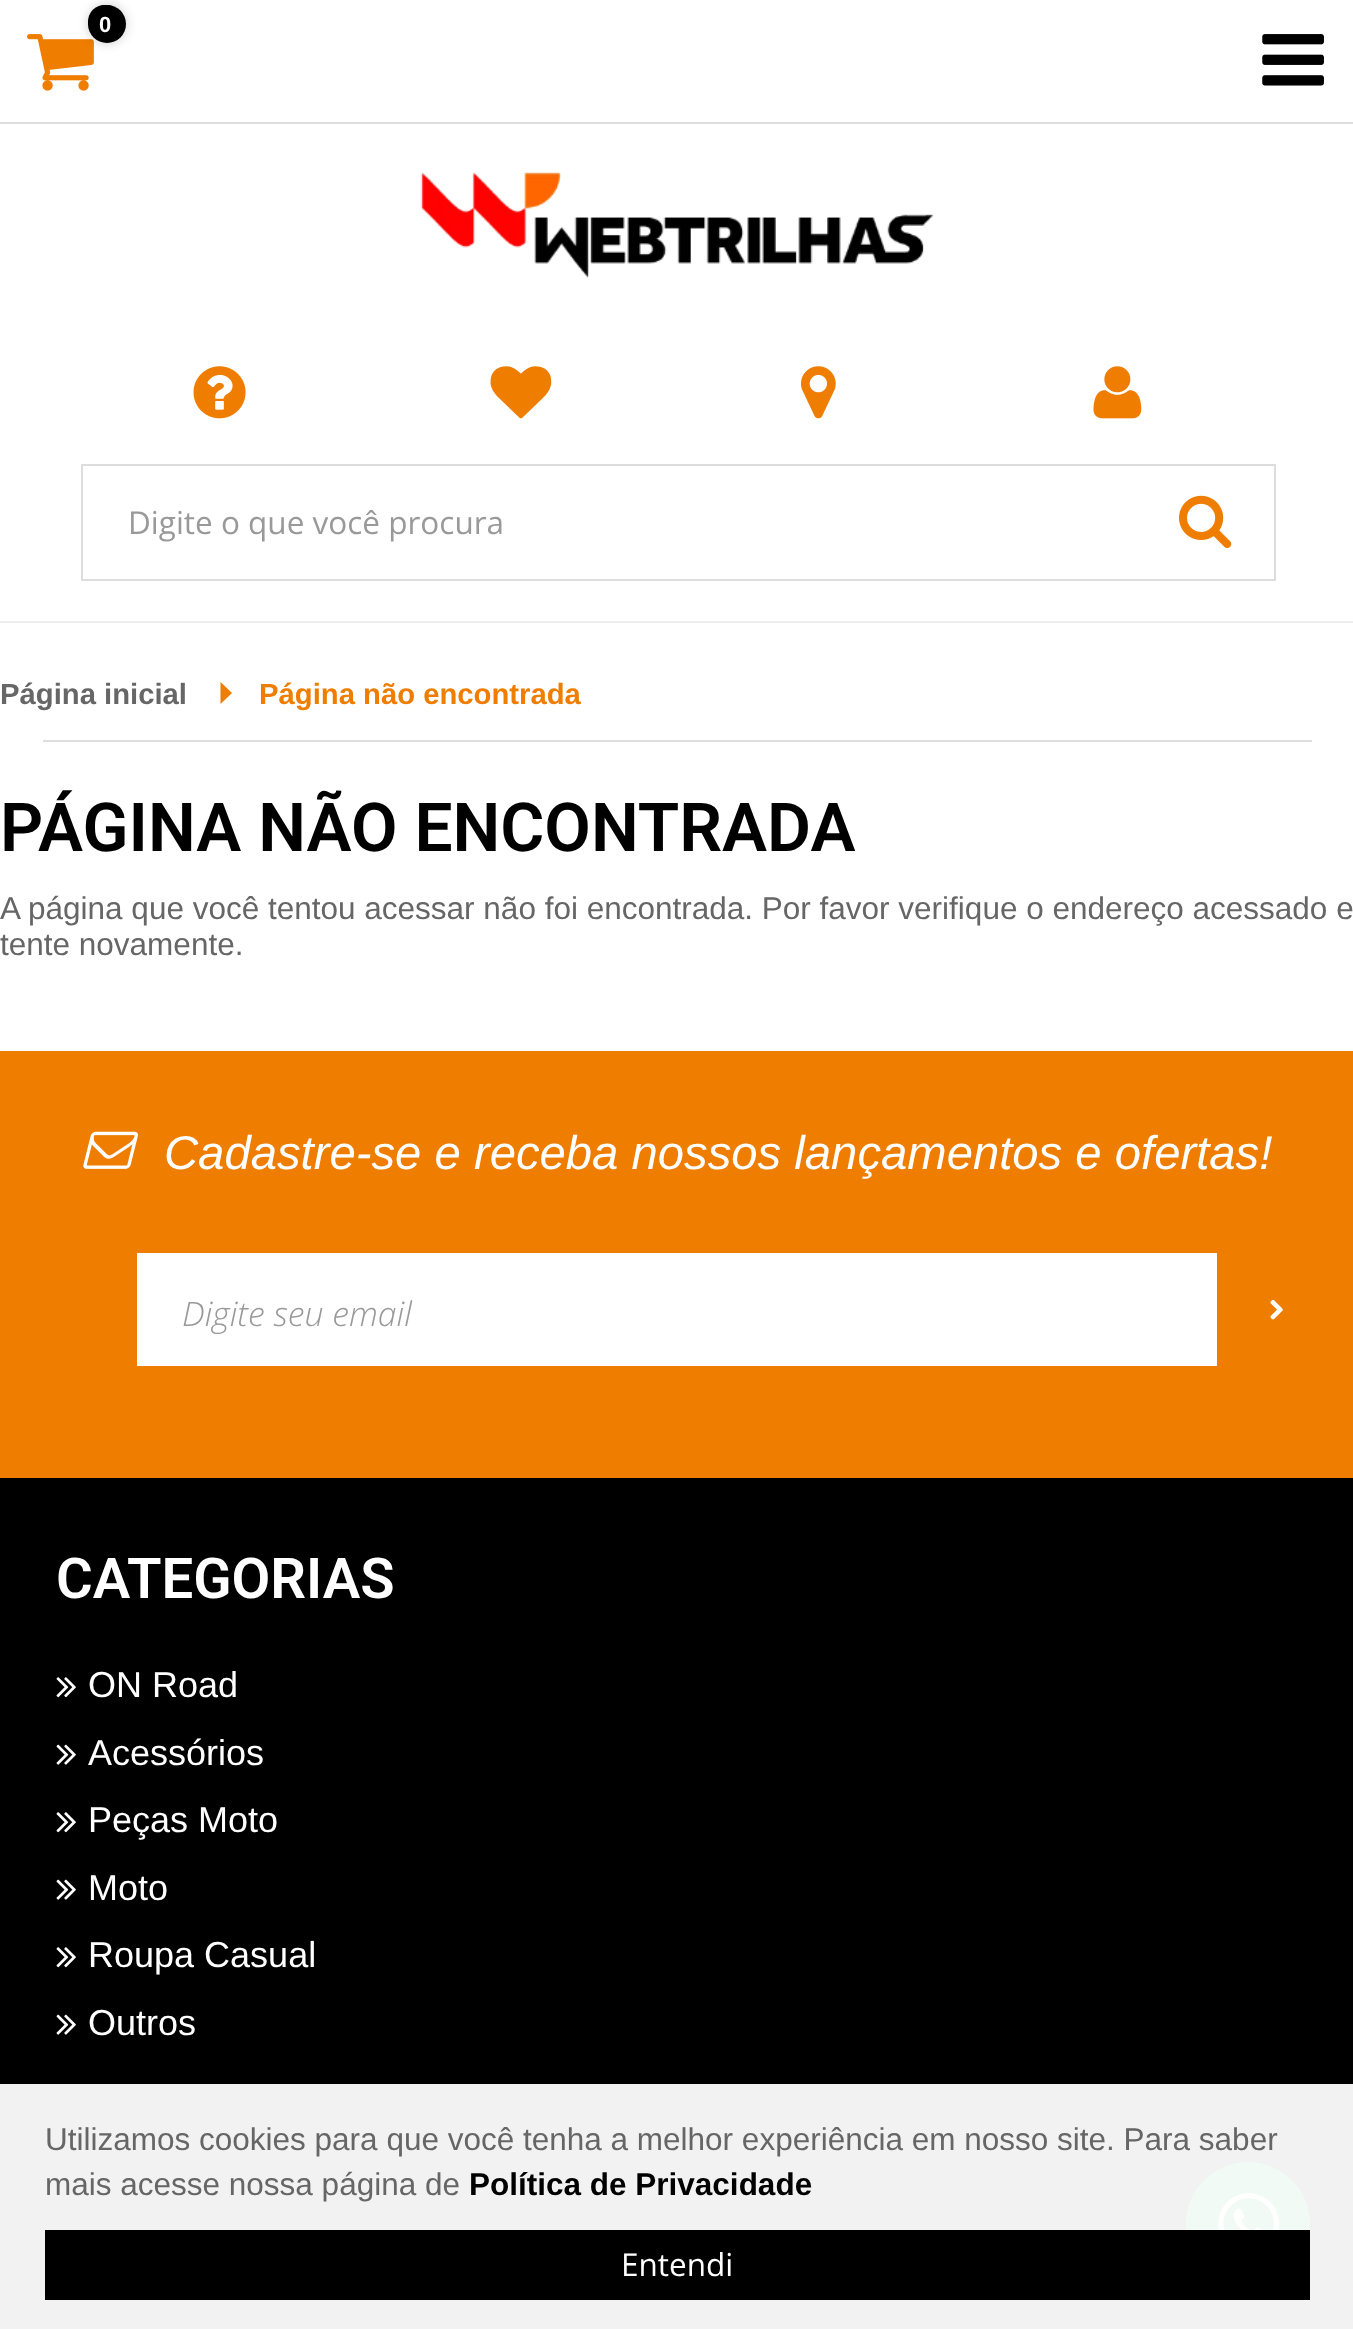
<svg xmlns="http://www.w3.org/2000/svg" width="1353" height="2329">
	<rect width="100%" height="100%" fill="#FFFFFF" />
	<rect x="0" y="621" width="1353" height="2" fill="#EEEEEE" />
	<image x="27" y="34" width="67" height="57" href="assets/img1.png" />
	<rect x="88" y="5" width="34" height="33" rx="16.5" fill="#000000" />
	<rect x="88" y="5" width="38" height="38" rx="19" fill="#000000" fill-opacity="0.2" filter="blur(5.5px)" />
	<circle cx="107" cy="24" r="19" fill="#000000" />
	<text x="99" y="32" font-family="Liberation Sans" font-size="22" font-weight="700" fill="#FFFFFF">0</text>
	<image x="193" y="366" width="53" height="53" href="assets/img2.png" />
	<image x="490" y="366" width="62" height="53" href="assets/img3.png" />
	<image x="801" y="366" width="35" height="53" href="assets/img4.png" />
	<image x="1093" y="366" width="49" height="53" href="assets/img5.png" />
	<rect x="82" y="465" width="1193" height="115" fill="none" stroke="#DDDDDD" stroke-width="2" />
	<text x="128" y="534" font-family="Open Sans" font-size="31.5" fill="#999999">Digite o que você procura</text>
	<image x="1179" y="495" width="53" height="53" href="assets/img6.png" />
	<image x="420" y="172" width="514" height="106" href="assets/img7.png" />
	<image x="1262" y="34" width="62" height="52" href="assets/img8.png" />
	<rect x="0" y="122" width="1353" height="2" fill="#DDDDDD" />
	<text x="0" y="704" font-family="Liberation Sans" font-size="29.25" font-weight="700" fill="#666666">Página inicial</text>
	<path d="M220.5 704V682L232 693Z" fill="#EF7D00" />
	<text x="259" y="704" font-family="Liberation Sans" font-size="29.25" font-weight="700" fill="#EF7D00">Página não encontrada</text>
	<rect x="43" y="740" width="1269" height="2" fill="#DEDEDE" />
	<text x="0" y="851" font-family="Roboto" font-size="67.5" font-weight="600" fill="#000000">PÁGINA NÃO ENCONTRADA</text>
	<g font-family="Liberation Sans" font-size="31.5" fill="#666666">
		<text x="0" y="919">A página que você tentou acessar não foi encontrada. Por favor verifique o endereço acessado e</text>
		<text x="0" y="955">tente novamente.</text>
	</g>
	<rect x="0" y="1051" width="1353" height="427" fill="#EF7D00" />
	<image x="83" y="1131" width="55" height="38" href="assets/img9.png" />
	<text x="164" y="1169" font-family="Liberation Sans" font-size="47.25" font-style="italic" fill="#FFFFFF">Cadastre-se e receba nossos lançamentos e ofertas!</text>
	<rect x="137" y="1253" width="1080" height="113" fill="#FFFFFF" />
	<text x="182" y="1326" font-family="Open Sans" font-size="33.75" font-weight="300" font-style="italic" fill="#999999">Digite seu email</text>
	<image x="1270" y="1299" width="13" height="21" href="assets/img10.png" />
	<rect x="0" y="1478" width="1353" height="606" fill="#000000" />
	<rect x="0" y="2084" width="1353" height="245" fill="#F2F2F2" />
	<text x="56" y="1598" font-family="Roboto" font-size="56.25" font-weight="600" fill="#FFFFFF">CATEGORIAS</text>
	<image x="56" y="1677" width="20" height="21" href="assets/img11.png" />
	<text x="88" y="1697" font-family="Liberation Sans" font-size="36" fill="#FFFFFF">ON Road</text>
	<image x="56" y="1744" width="20" height="21" href="assets/img12.png" />
	<text x="88" y="1765" font-family="Liberation Sans" font-size="36" fill="#FFFFFF">Acessórios</text>
	<image x="56" y="1812" width="20" height="21" href="assets/img11.png" />
	<text x="88" y="1832" font-family="Liberation Sans" font-size="36" fill="#FFFFFF">Peças Moto</text>
	<image x="56" y="1879" width="20" height="21" href="assets/img12.png" />
	<text x="88" y="1900" font-family="Liberation Sans" font-size="36" fill="#FFFFFF">Moto</text>
	<image x="56" y="1947" width="20" height="21" href="assets/img11.png" />
	<text x="88" y="1967" font-family="Liberation Sans" font-size="36" fill="#FFFFFF">Roupa Casual</text>
	<image x="56" y="2014" width="20" height="21" href="assets/img12.png" />
	<text x="88" y="2035" font-family="Liberation Sans" font-size="36" fill="#FFFFFF">Outros</text>
	<g font-family="Liberation Sans" font-size="31.5" fill="#666666">
		<text x="45" y="2150">Utilizamos cookies para que você tenha a melhor experiência em nosso site. Para saber</text>
		<text x="45" y="2195">mais acesse nossa página de</text>
	</g>
	<text x="469" y="2195" font-family="Liberation Sans" font-size="31.5" font-weight="700" fill="#000000">Política de Privacidade</text>
	<circle cx="1248" cy="2224" r="62" fill="#F2FAF5" />
	<rect x="45" y="2230" width="1265" height="70" fill="#000000" />
	<text x="621" y="2276" font-family="Open Sans" font-size="31.5" fill="#FFFFFF">Entendi</text>
	<image x="1218" y="2193" width="61" height="37" href="assets/img13.png" />
</svg>
